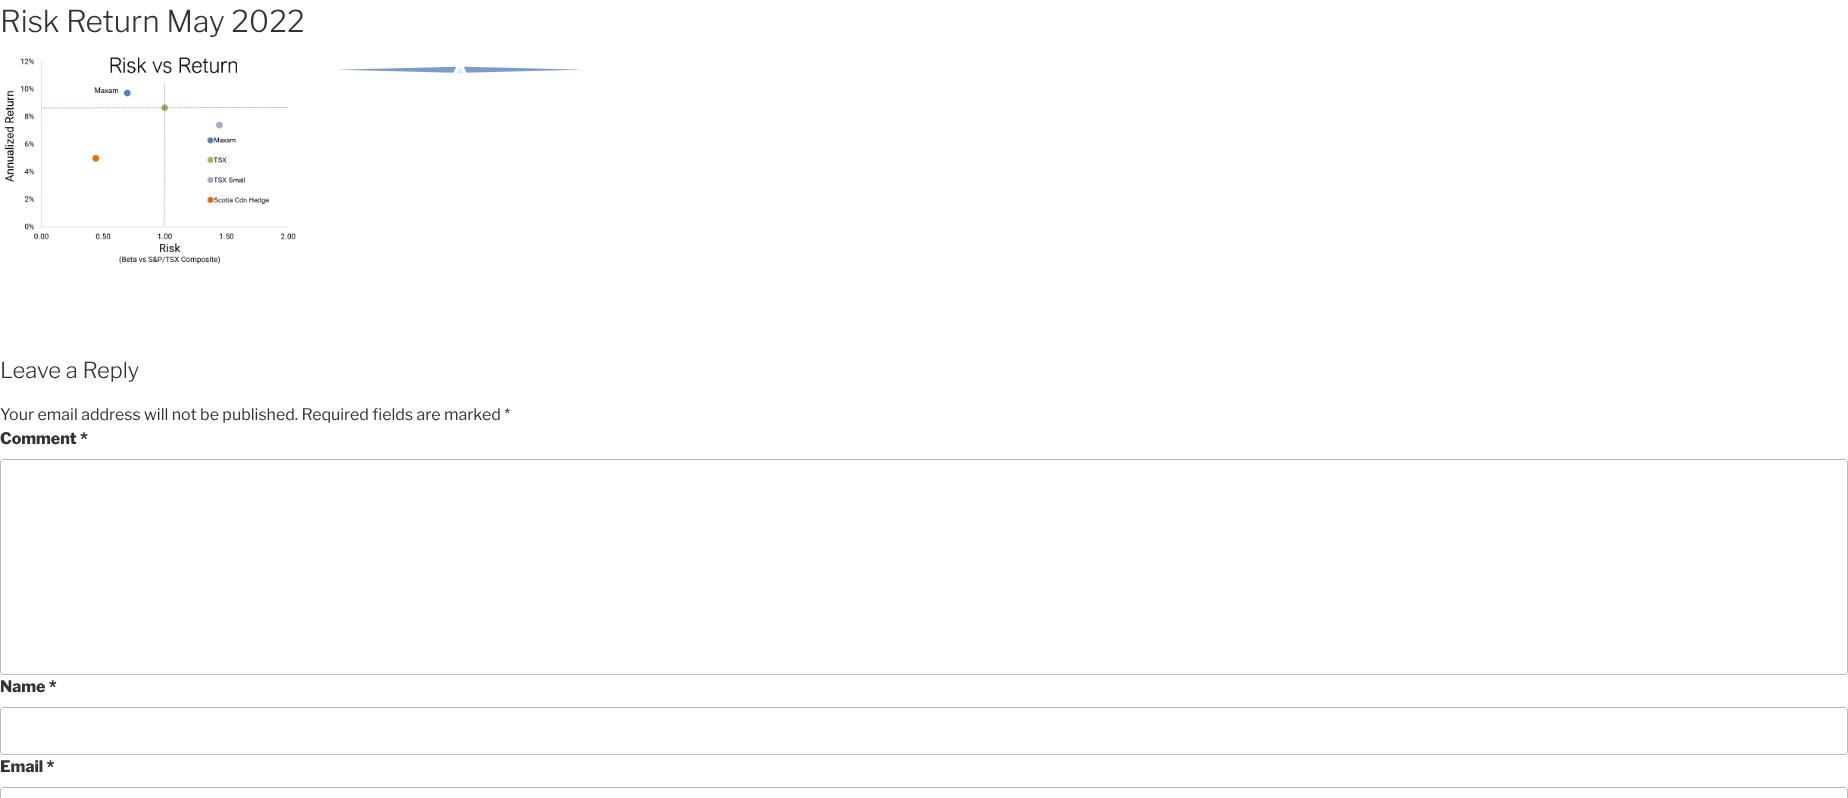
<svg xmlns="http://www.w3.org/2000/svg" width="1848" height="798">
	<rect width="100%" height="100%" fill="#FFFFFF" />
	<text x="0" y="32" font-family="Libre Franklin" font-size="30" font-weight="300" fill="#333333">Risk Return May 2022</text>
	<image x="4" y="57" width="292" height="207" href="assets/img1.png" />
	<text x="0" y="378" font-family="Libre Franklin" font-size="22" font-weight="300" fill="#333333">Leave a Reply</text>
	<text x="0" y="420" font-family="Libre Franklin" font-size="16" fill="#333333">Your email address will not be published. Required fields are marked *</text>
	<text x="0" y="444" font-family="Libre Franklin" font-size="16" font-weight="800" fill="#333333">Comment *</text>
	<rect x="0.5" y="459.5" width="1847" height="215" rx="2.5" fill="none" stroke="#BBBBBB" />
	<text x="0" y="692" font-family="Libre Franklin" font-size="16" font-weight="800" fill="#333333">Name *</text>
	<rect x="0.5" y="707.5" width="1847" height="47" rx="2.5" fill="none" stroke="#BBBBBB" />
	<text x="0" y="772" font-family="Libre Franklin" font-size="16" font-weight="800" fill="#333333">Email *</text>
	<rect x="0.5" y="787.5" width="1847" height="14" rx="2.5" fill="none" stroke="#BBBBBB" />
	<image x="339" y="66" width="242" height="8" href="assets/img2.png" />
</svg>
